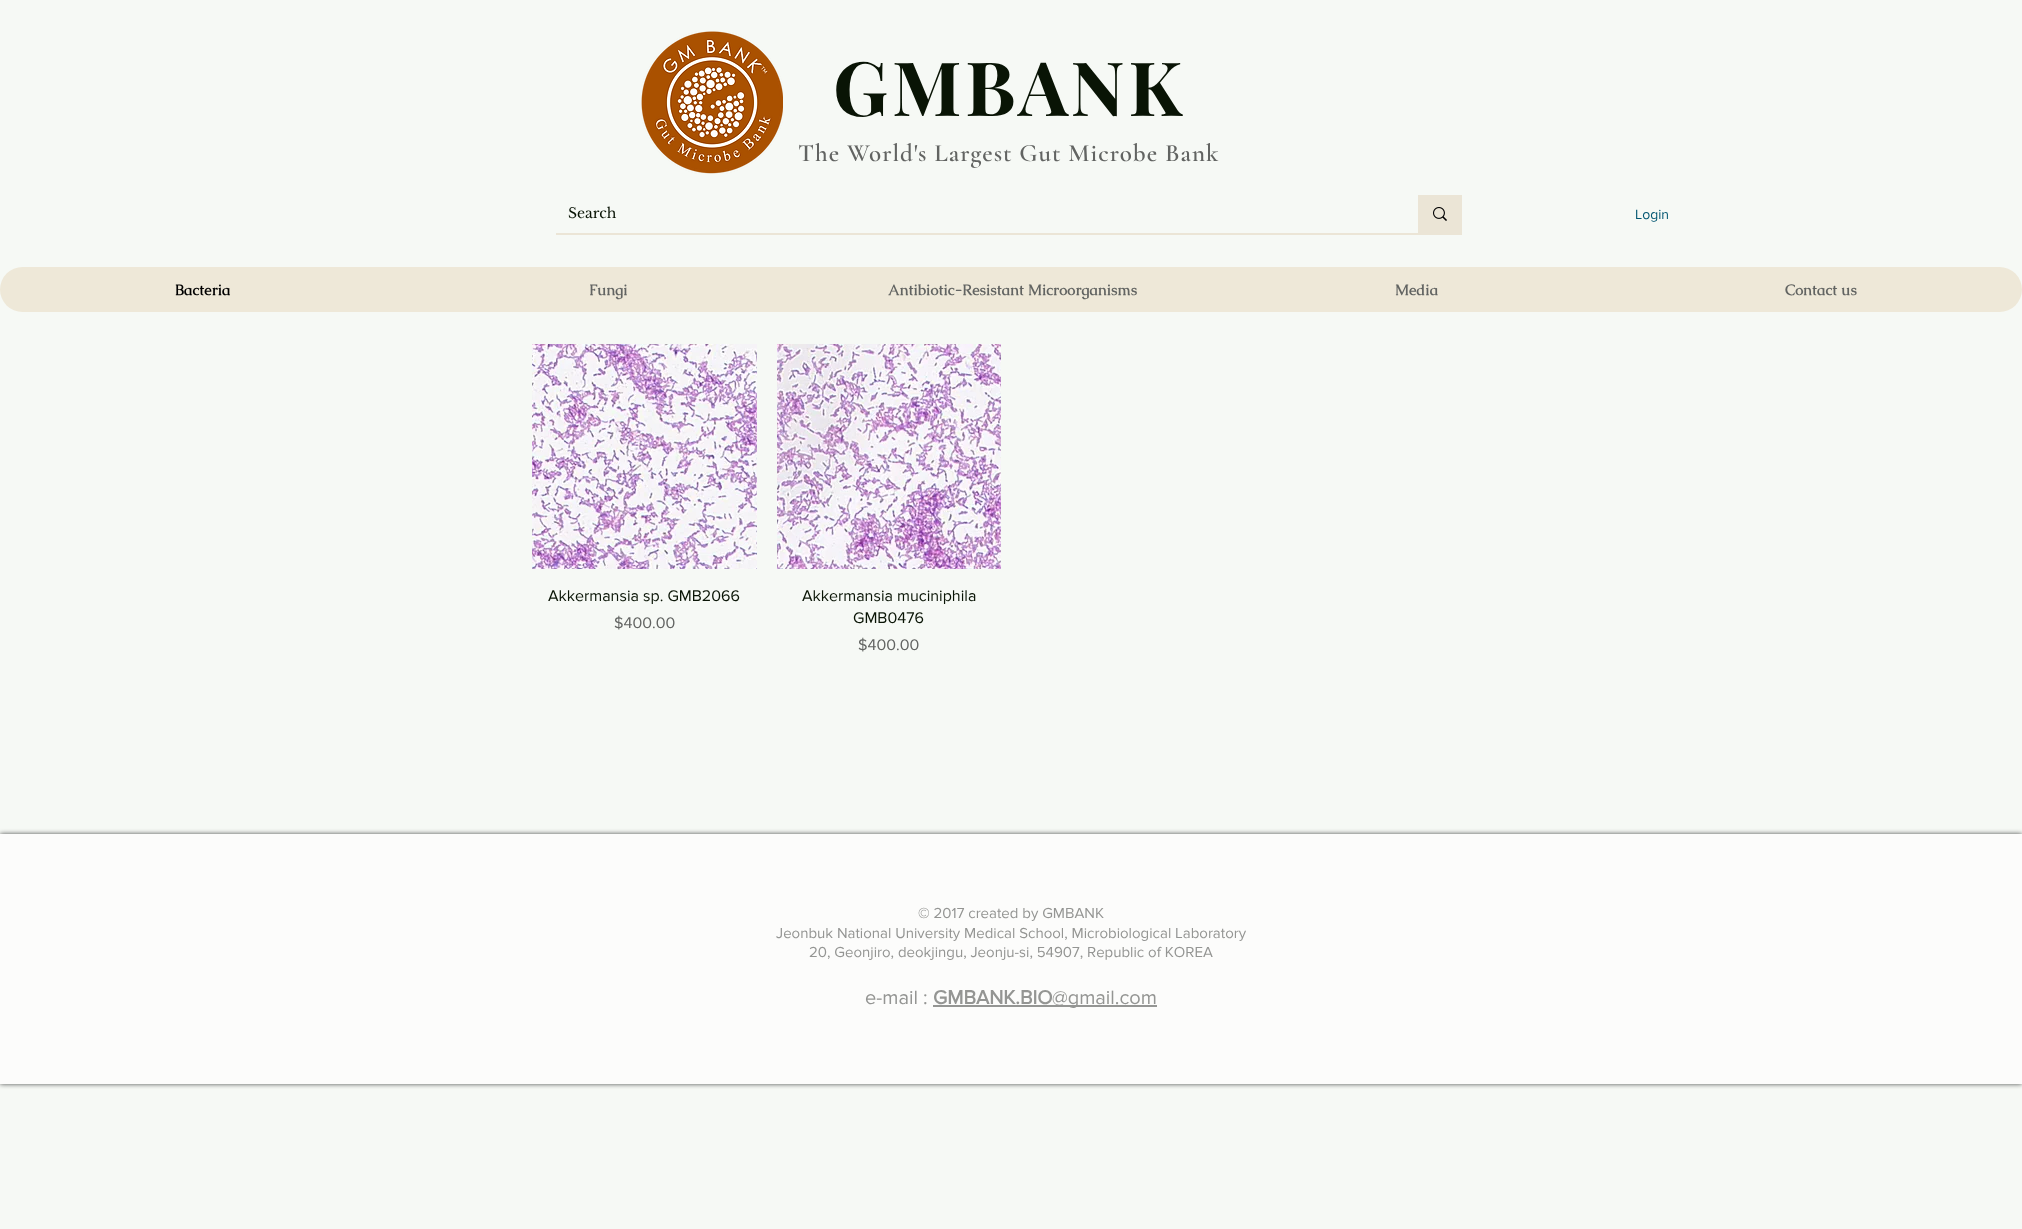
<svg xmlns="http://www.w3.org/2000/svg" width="2022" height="1229">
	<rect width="100%" height="100%" fill="#F6F9F5" />
	<image x="641" y="31" width="142" height="143" href="assets/img1.png" />
	<text x="833" y="116" font-family="Playfair Display" font-size="75" font-weight="700" letter-spacing="3.75" fill="#091405">GMBANK</text>
	<text x="798" y="161" font-family="Cormorant Garamond" font-size="25" font-weight="600" letter-spacing="1" fill="#626462">The World's Largest Gut Microbe Bank</text>
	<rect x="556" y="233" width="906" height="2" fill="#EBE5D6" />
	<text x="568" y="218" font-family="Libre Baskerville" font-size="14" fill="#091405">Search</text>
	<rect x="1418" y="195" width="44" height="38" fill="#EBE5D6" />
	<image x="1433" y="207" width="14" height="14" href="assets/img2.png" />
	<text x="1635" y="219" font-family="'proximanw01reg'" font-size="14" fill="#035772">Login</text>
	<rect x="0" y="267" width="2022" height="45" rx="22.5" fill="#EEE8D8" />
	<text x="175" y="295" font-family="Caudex" font-size="15" font-weight="700" fill="#000000">Bacteria</text>
	<g font-family="Caudex" font-size="15" font-weight="700" fill="#626462">
		<text x="589" y="295">Fungi</text>
		<text x="888" y="295">Antibiotic-Resistant Microorganisms</text>
		<text x="1395" y="295">Media</text>
		<text x="1785" y="295">Contact us</text>
	</g>
	<image x="532" y="344" width="225" height="225" href="assets/img3.png" />
	<text x="548" y="601" font-family="'proximanw01reg'" font-size="16" fill="#091405">Akkermansia sp. GMB2066</text>
	<text x="614" y="628" font-family="'proximanw01reg'" font-size="16" fill="#626462">$400.00</text>
	<image x="777" y="344" width="224" height="225" href="assets/img4.png" />
	<g font-family="'proximanw01reg'" font-size="16" fill="#091405">
		<text x="802" y="601">Akkermansia muciniphila</text>
		<text x="853" y="623">GMB0476</text>
	</g>
	<text x="858" y="650" font-family="'proximanw01reg'" font-size="16" fill="#626462">$400.00</text>
	<rect x="0" y="834" width="2022" height="250" fill="#000000" fill-opacity="0.7" filter="blur(2.5px)" />
	<rect x="0" y="834" width="2022" height="250" fill="#FCFCFB" />
	<g font-family="'proximanw01reg'" font-size="15" fill="#949593">
		<text x="918" y="918">© 2017 created by GMBANK</text>
		<text x="776" y="938">Jeonbuk National University Medical School, Microbiological Laboratory</text>
		<text x="809" y="957">20, Geonjiro, deokjingu, Jeonju-si, 54907, Republic of KOREA</text>
	</g>
	<text x="865" y="1004" font-family="'proximanw01reg'" font-size="20" fill="#949593">e-mail :</text>
	<text x="933" y="1004" font-family="'proximanw01reg'" font-size="20" font-weight="700" fill="#949593">GMBANK.BIO</text>
	<rect x="933" y="1005" width="224" height="2" fill="#949593" />
	<text x="1052" y="1004" font-family="'proximanw01reg'" font-size="20" fill="#949593">@gmail.com</text>
</svg>
